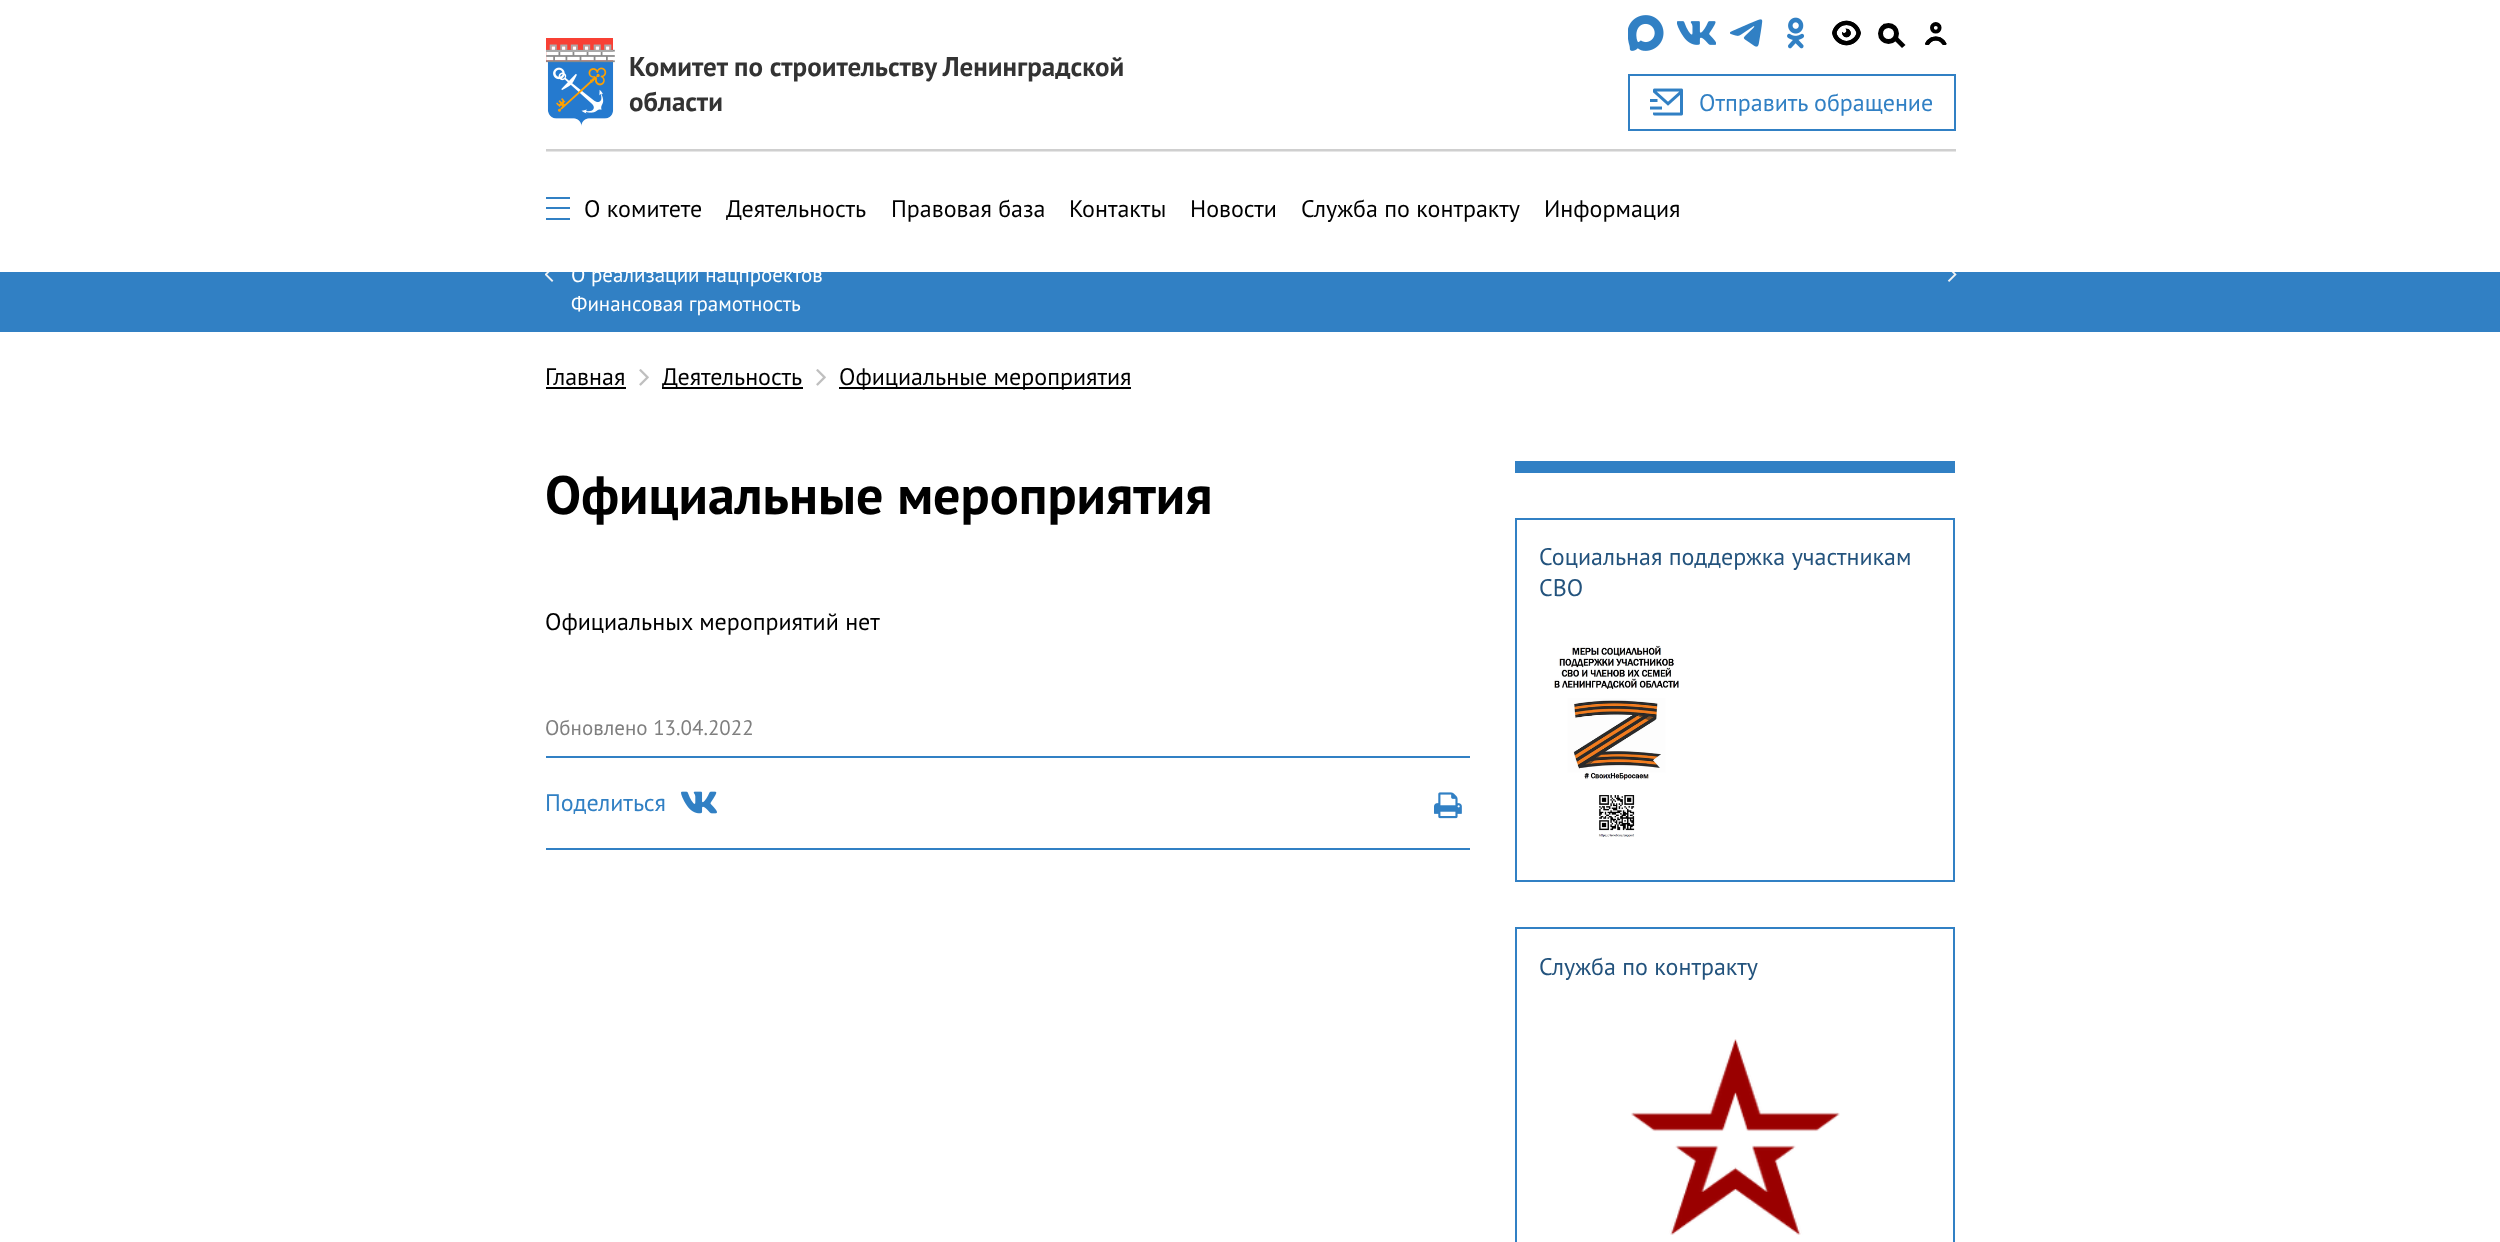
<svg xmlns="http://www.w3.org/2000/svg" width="2500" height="1242">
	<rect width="100%" height="100%" fill="#FFFFFF" />
	<image x="546" y="38" width="69" height="88" href="assets/img1.png" />
	<g font-family="PT Sans" font-size="27" font-weight="700" fill="#333333">
		<text x="629" y="76">Комитет по строительству Ленинградской</text>
		<text x="629" y="111">области</text>
	</g>
	<image x="1628" y="15" width="36" height="36" href="assets/img2.png" />
	<image x="1677" y="21" width="39" height="24" href="assets/img3.png" />
	<image x="1730" y="19" width="33" height="28" href="assets/img4.png" />
	<image x="1787" y="17" width="18" height="32" href="assets/img5.png" />
	<image x="1832" y="20" width="29" height="26" href="assets/img6.png" />
	<path d="M1884 23.5L1905.5 45L1902 48L1881 27Z" fill="#000000" />
	<circle cx="1888.5" cy="33.5" r="8" fill="#FFFFFF" stroke="#000000" stroke-width="5" />
	<image x="1925" y="22" width="22" height="23" href="assets/img7.png" />
	<rect x="1629" y="75" width="326" height="55" fill="none" stroke="#3180C4" stroke-width="2" />
	<image x="1650" y="88" width="33" height="28" href="assets/img8.png" />
	<text x="1699" y="111" font-family="PT Sans" font-size="24" fill="#3180C4">Отправить обращение</text>
	<rect x="546" y="151" width="1410" height="1" fill="#E6E6E6" />
	<rect x="546" y="149" width="1410" height="2" fill="#CFCFCF" />
	<rect x="546" y="197" width="24" height="2" fill="#3180C4" />
	<rect x="546" y="207" width="24" height="2" fill="#3180C4" />
	<rect x="546" y="218" width="24" height="2" fill="#3180C4" />
	<g font-family="PT Sans" font-size="24" fill="#000000">
		<text x="584" y="217">О комитете</text>
		<text x="726" y="217">Деятельность</text>
		<text x="891" y="217">Правовая база</text>
		<text x="1069" y="217">Контакты</text>
		<text x="1190" y="217">Новости</text>
		<text x="1301" y="217">Служба по контракту</text>
		<text x="1544" y="217">Информация</text>
	</g>
	<rect x="0" y="272" width="2500" height="60" fill="#3180C4" />
	<image x="545" y="272" width="9" height="10" href="assets/img9.png" />
	<g font-family="PT Sans" font-size="21" fill="#FFFFFF">
		<text x="571" y="282">О реализации нацпроектов</text>
		<text x="571" y="311">Финансовая грамотность</text>
	</g>
	<image x="1947" y="272" width="10" height="10" href="assets/img10.png" />
	<text x="545" y="385" font-family="PT Sans" font-size="24" fill="#000000">Главная</text>
	<rect x="546" y="387" width="80" height="2" fill="#000000" />
	<image x="639" y="369" width="10" height="17" href="assets/img11.png" />
	<rect x="662" y="387" width="141" height="2" fill="#000000" />
	<text x="662" y="385" font-family="PT Sans" font-size="24" fill="#000000">Деятельность</text>
	<image x="816" y="369" width="10" height="17" href="assets/img11.png" />
	<rect x="839" y="387" width="292" height="2" fill="#000000" />
	<text x="839" y="385" font-family="PT Sans" font-size="24" fill="#000000">Официальные мероприятия</text>
	<text x="545" y="514" font-family="PT Sans" font-size="54" font-weight="700" fill="#000000">Официальные мероприятия</text>
	<text x="545" y="630" font-family="PT Sans" font-size="24" fill="#000000">Официальных мероприятий нет</text>
	<text x="545" y="735" font-family="PT Sans" font-size="21" fill="#7F7F7F">Обновлено 13.04.2022</text>
	<rect x="546" y="756" width="924" height="2" fill="#3180C4" />
	<rect x="546" y="848" width="924" height="2" fill="#3180C4" />
	<text x="545" y="811" font-family="PT Sans" font-size="24" fill="#3180C4">Поделиться</text>
	<image x="681" y="791" width="36" height="23" href="assets/img12.png" />
	<image x="1434" y="792" width="28" height="27" href="assets/img13.png" />
	<rect x="1515" y="461" width="440" height="12" fill="#3180C4" />
	<rect x="1516" y="519" width="438" height="362" fill="none" stroke="#3180C4" stroke-width="2" />
	<g font-family="PT Sans" font-size="24" fill="#23537D">
		<text x="1539" y="565">Социальная поддержка участникам</text>
		<text x="1539" y="596">СВО</text>
	</g>
	<image x="1554" y="645" width="125" height="192" href="assets/img14.png" />
	<rect x="1516" y="928" width="438" height="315" fill="none" stroke="#3180C4" stroke-width="2" />
	<text x="1539" y="975" font-family="PT Sans" font-size="24" fill="#23537D">Служба по контракту</text>
	<image x="1631" y="1039" width="209" height="196" href="assets/img15.png" />
</svg>
